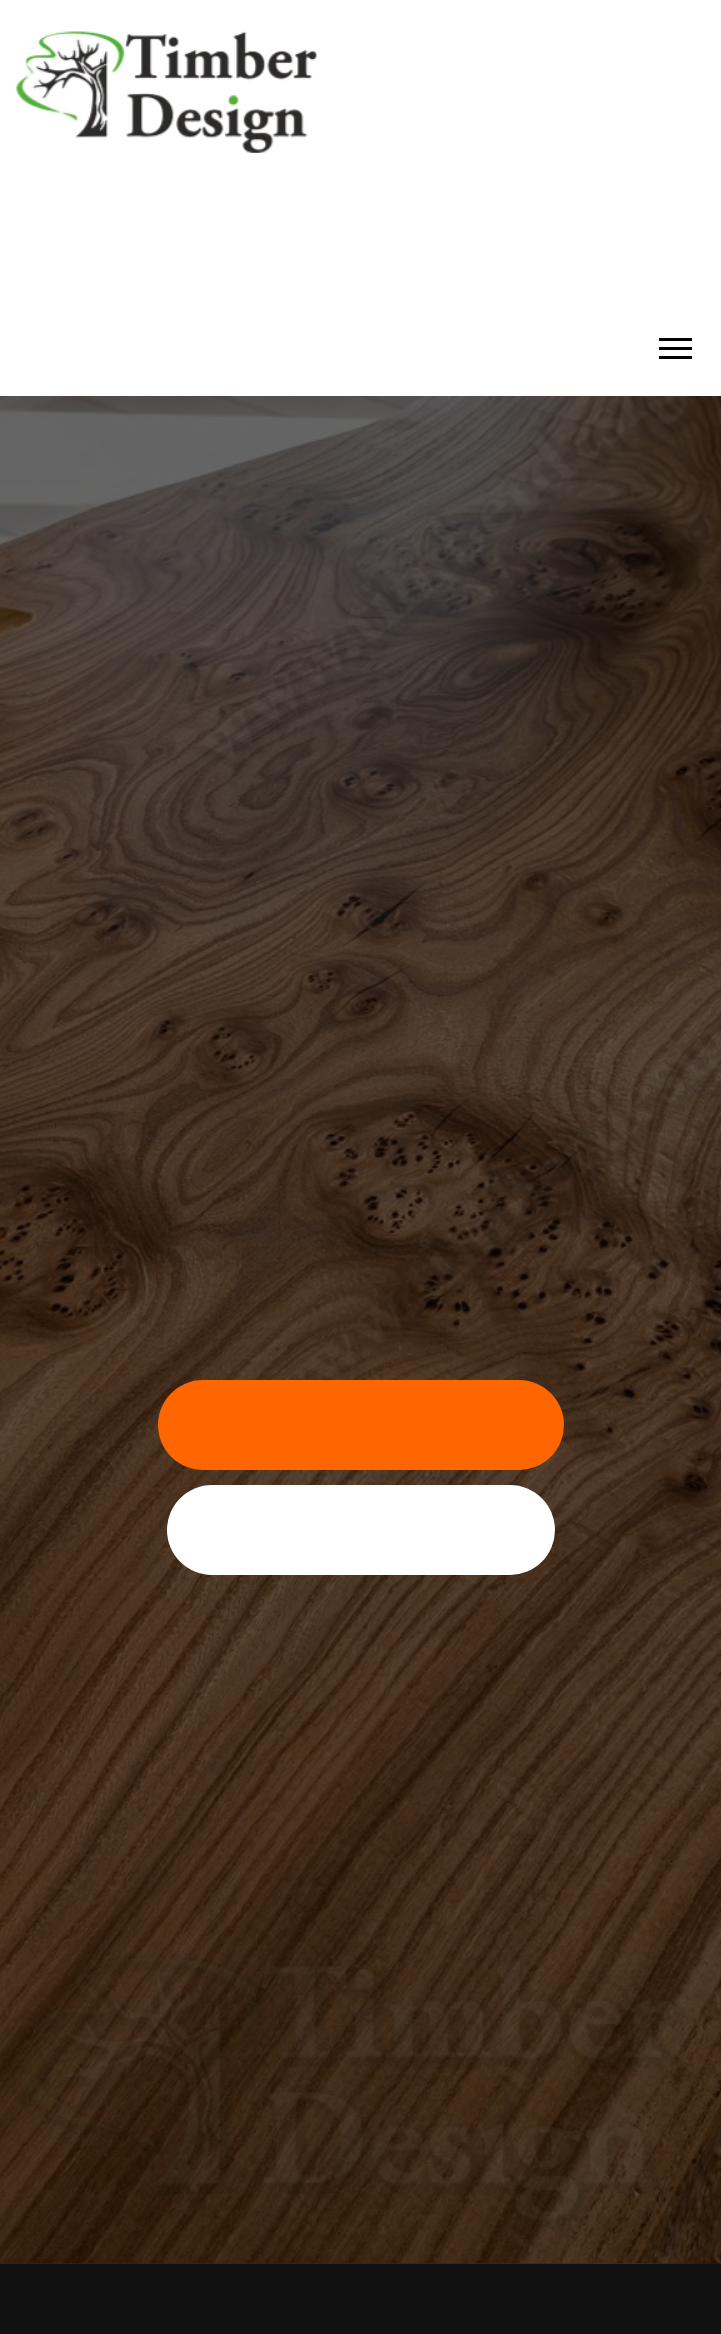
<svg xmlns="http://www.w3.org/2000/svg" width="721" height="2334">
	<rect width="100%" height="100%" fill="#FFFFFF" />
	<image x="16" y="31" width="301" height="122" href="assets/img1.png" />
	<rect x="659" y="338" width="33" height="3" fill="#000000" />
	<rect x="659" y="347" width="33" height="3" fill="#000000" />
	<rect x="659" y="356" width="33" height="3" fill="#000000" />
	<rect x="640" y="2263" width="81" height="1" fill="#000000" />
	<image x="0" y="2263" width="721" height="1" href="assets/img2.png" />
	<image x="0" y="396" width="721" height="1868" href="assets/img3.png" />
	<rect x="158" y="1380" width="406" height="90" rx="45" fill="#FF6600" />
	<rect x="167" y="1485" width="388" height="90" rx="45" fill="#FFFFFF" />
	<rect x="0" y="2264" width="721" height="70" fill="#111111" />
</svg>
